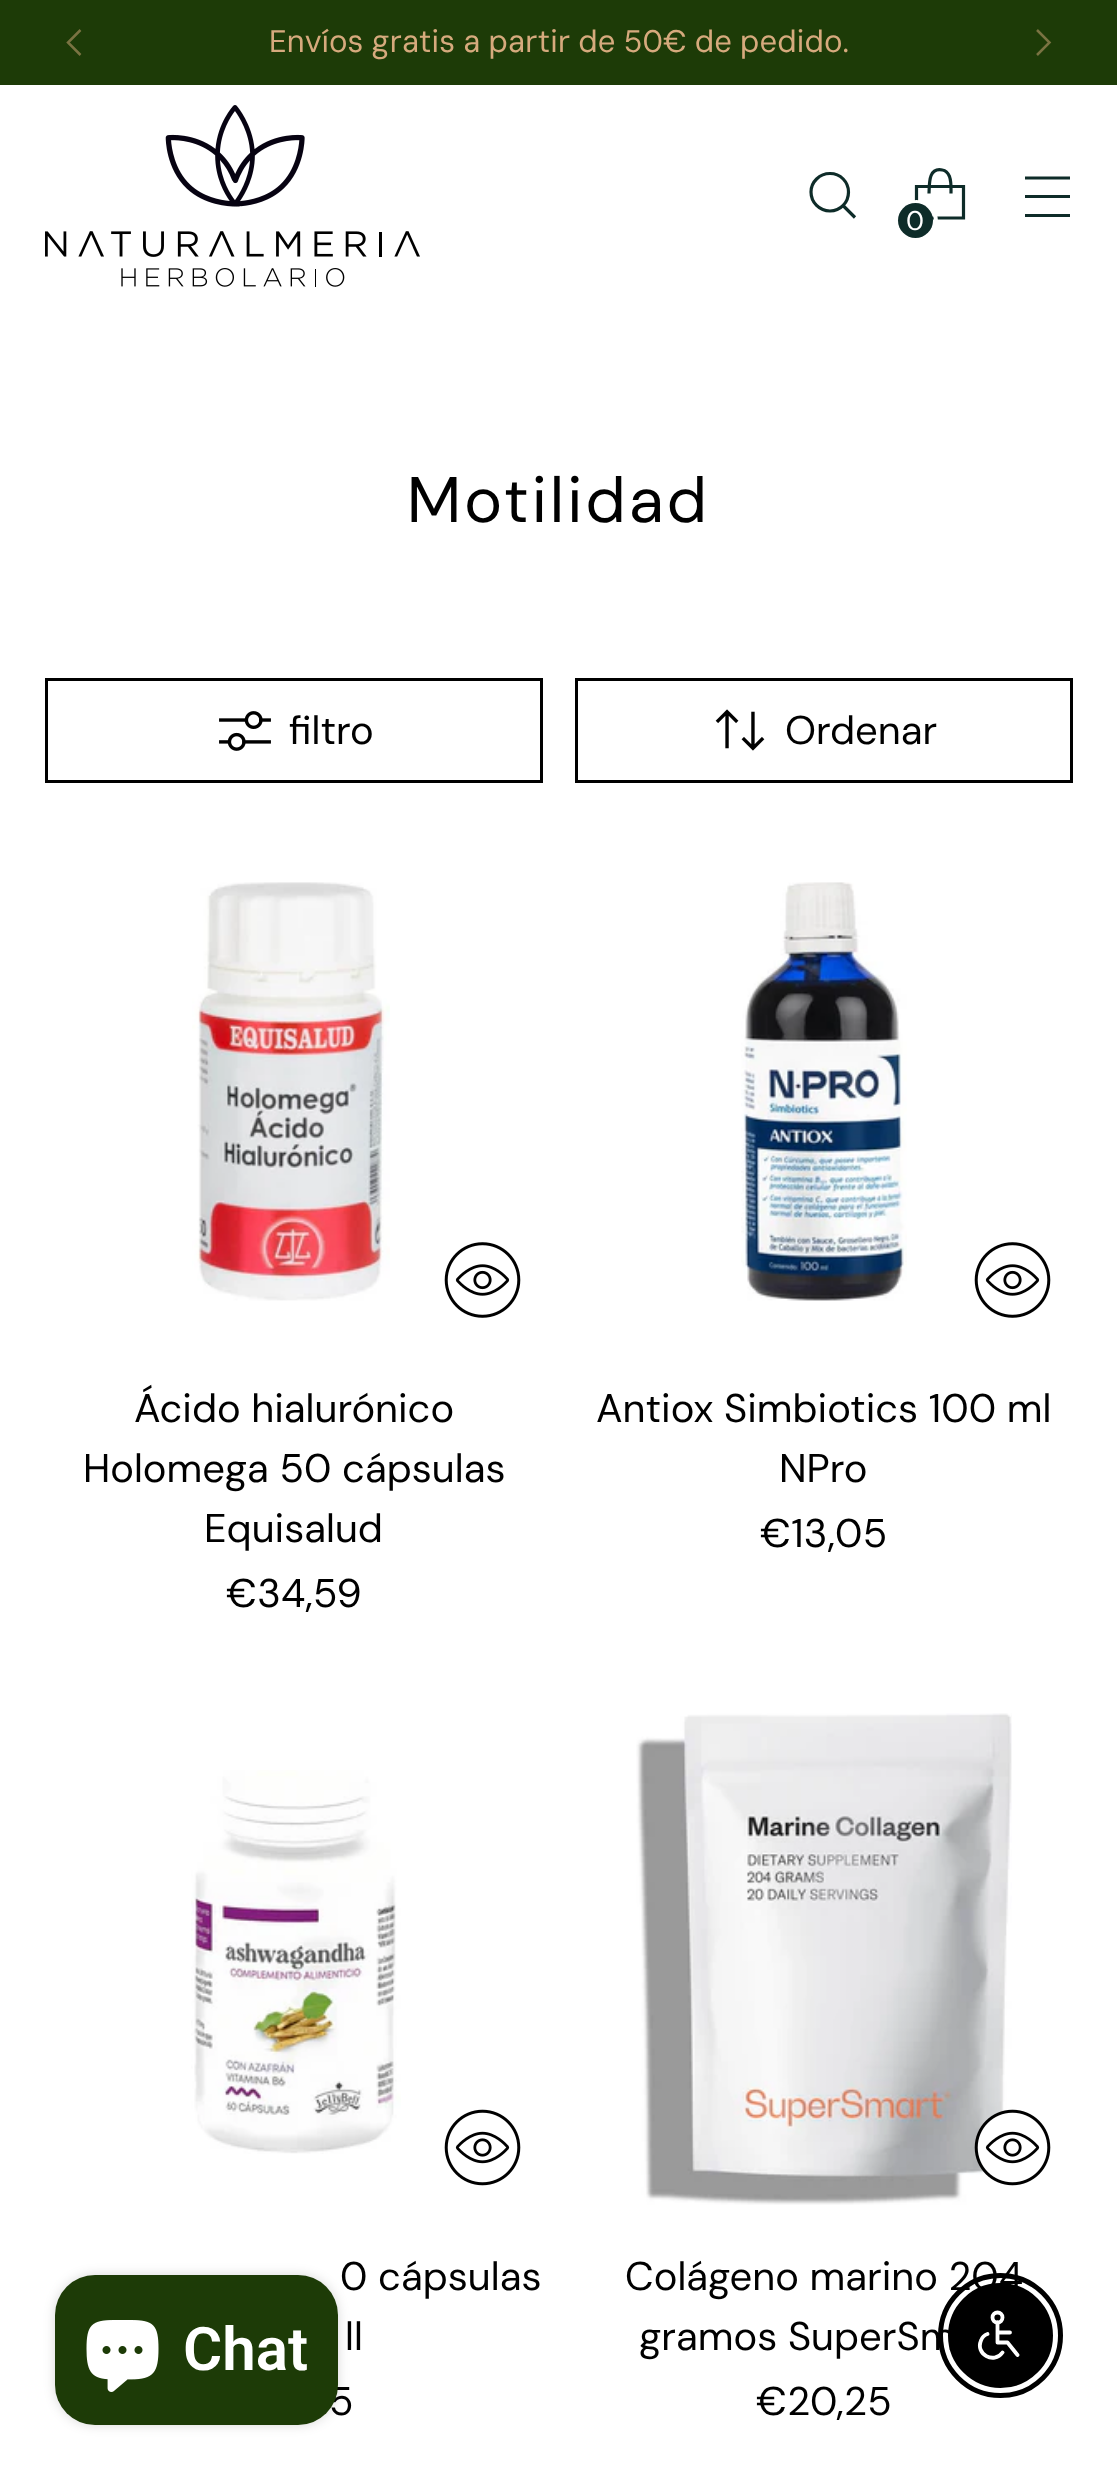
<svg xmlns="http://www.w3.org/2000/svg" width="1117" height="2477">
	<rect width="100%" height="100%" fill="#FFFFFF" />
	<rect x="0" y="0" width="1117" height="85" fill="#1D3B07" />
	<text x="269" y="52" word-spacing="-0.5" font-family="'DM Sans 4'" font-size="31.1" letter-spacing="0.15" fill="#D6AA7D">Envíos gratis a partir de 50€ de pedido.</text>
	<path d="M80.5 30L68 42.5L80.5 55" fill="none" stroke="#7A7342" stroke-width="2.5" />
	<path d="M1037 55L1049.5 42.5L1037 30" fill="none" stroke="#7A7342" stroke-width="2.5" />
	<image x="45" y="105" width="375" height="182" href="assets/img1.png" />
	<path d="M830 211C840.5 211 848.5 202.5 848.5 192C848.5 182 840.5 173.5 830 173.5C819.5 173.5 811 182 811 192C811 202.5 819.5 211 830 211Z" fill="none" stroke="#0E2C29" stroke-width="3.2" stroke-linecap="round" />
	<path d="M843.5 206L855 217.5" fill="none" stroke="#0E2C29" stroke-width="3.2" />
	<path d="M1025 196.5H1070M1025 178H1070M1025 215.5H1070" fill="none" stroke="#0E2C29" stroke-width="3.2" />
	<path d="M951 193.5C951 188 951.5 182 949.5 176.5C948 173 946 170.5 942.5 170C928 167 929.5 184.5 929 193.5" fill="none" stroke="#0E2C29" stroke-width="3.2" stroke-linejoin="bevel" />
	<path d="M963.5 218V186.5H916.5V218Z" fill="none" stroke="#0E2C29" stroke-width="3.2" />
	<circle cx="916.5" cy="221.5" r="19.5" fill="none" stroke="#FFFFFF" stroke-width="4" />
	<circle cx="915.5" cy="220.5" r="17.5" fill="#0E2C29" />
	<text x="906" y="230" font-family="'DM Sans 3'" font-size="27" letter-spacing="0.25" fill="#FFFFFF">0</text>
	<text x="407" y="522" font-family="DM Sans" font-size="64.25" letter-spacing="3.25" fill="#000000">Motilidad</text>
	<rect x="46.5" y="679.5" width="495" height="102" fill="none" stroke="#000000" stroke-width="3" />
	<image x="219" y="711" width="52" height="40" href="assets/img2.png" />
	<text x="289" y="744" font-family="'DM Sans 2'" font-size="40" fill="#000000">filtro</text>
	<rect x="576.5" y="679.5" width="495" height="102" fill="none" stroke="#000000" stroke-width="3" />
	<image x="715" y="709" width="50" height="42" href="assets/img3.png" />
	<text x="785" y="744" font-family="'DM Sans 2'" font-size="40" fill="#000000">Ordenar</text>
	<image x="192" y="882" width="198" height="419" href="assets/img4.png" />
	<image x="444" y="1242" width="77" height="76" href="assets/img5.png" />
	<g font-family="'DM Sans 2'" font-size="40" fill="#000000">
		<text x="134" y="1422">Ácido hialurónico</text>
		<text x="83" y="1482">Holomega 50 cápsulas</text>
		<text x="204" y="1542">Equisalud</text>
	</g>
	<text x="226" y="1607" font-family="'DM Sans 2'" font-size="40" letter-spacing="0.25" fill="#000000">€34,59</text>
	<image x="741" y="882" width="166" height="419" href="assets/img6.png" />
	<image x="974" y="1242" width="77" height="76" href="assets/img5.png" />
	<g font-family="'DM Sans 2'" font-size="40" fill="#000000">
		<text x="596" y="1422">Antiox Simbiotics 100 ml</text>
		<text x="779" y="1482">NPro</text>
	</g>
	<text x="760" y="1547" font-family="'DM Sans 2'" font-size="40" letter-spacing="0.25" fill="#000000">€13,05</text>
	<image x="191" y="1770" width="210" height="384" href="assets/img7.png" />
	<image x="444" y="2109" width="77" height="77" href="assets/img8.png" />
	<g font-family="'DM Sans 2'" font-size="40" fill="#000000">
		<text x="340" y="2290">0 cápsulas</text>
		<text x="345" y="2350">ll</text>
	</g>
	<text x="329" y="2415" font-family="'DM Sans 2'" font-size="40" letter-spacing="0.25" fill="#000000">5</text>
	<image x="636" y="1713" width="376" height="492" href="assets/img9.png" />
	<image x="974" y="2109" width="77" height="77" href="assets/img10.png" />
	<g font-family="'DM Sans 2'" font-size="40" fill="#000000">
		<text x="625" y="2290">Colágeno marino 204</text>
		<text x="639" y="2350">gramos SuperSm</text>
	</g>
	<text x="756" y="2415" font-family="'DM Sans 2'" font-size="40" letter-spacing="0.25" fill="#000000">€20,25</text>
	<rect x="55" y="2275" width="283" height="150" rx="40" fill="#000000" fill-opacity="0.15" filter="blur(6px)" />
	<rect x="55" y="2275" width="283" height="150" rx="40" fill="#1D3B07" />
	<image x="86" y="2320" width="73" height="72" href="assets/img11.png" />
	<text x="183" y="2370" font-family="Roboto" font-size="60" font-weight="600" fill="#FFFFFF">Chat</text>
	<circle cx="1000.5" cy="2335.5" r="60" fill="none" stroke="#000000" stroke-width="5" />
	<circle cx="1000.5" cy="2335.5" r="51" fill="#000000" stroke="#000000" stroke-width="3" />
	<circle cx="997.5" cy="2317.5" r="5" fill="none" stroke="#FFFFFF" stroke-width="3.8" />
	<path d="M997.5 2322.5V2342.5H1007.5L1017.5 2355M997.5 2332.5H1010M987.5 2334C984.5 2335 982 2337.5 981 2340.5C975 2354 994 2364.5 1002.5 2352.5" fill="none" stroke="#FFFFFF" stroke-width="3.8" stroke-linecap="round" stroke-linejoin="round" />
</svg>
